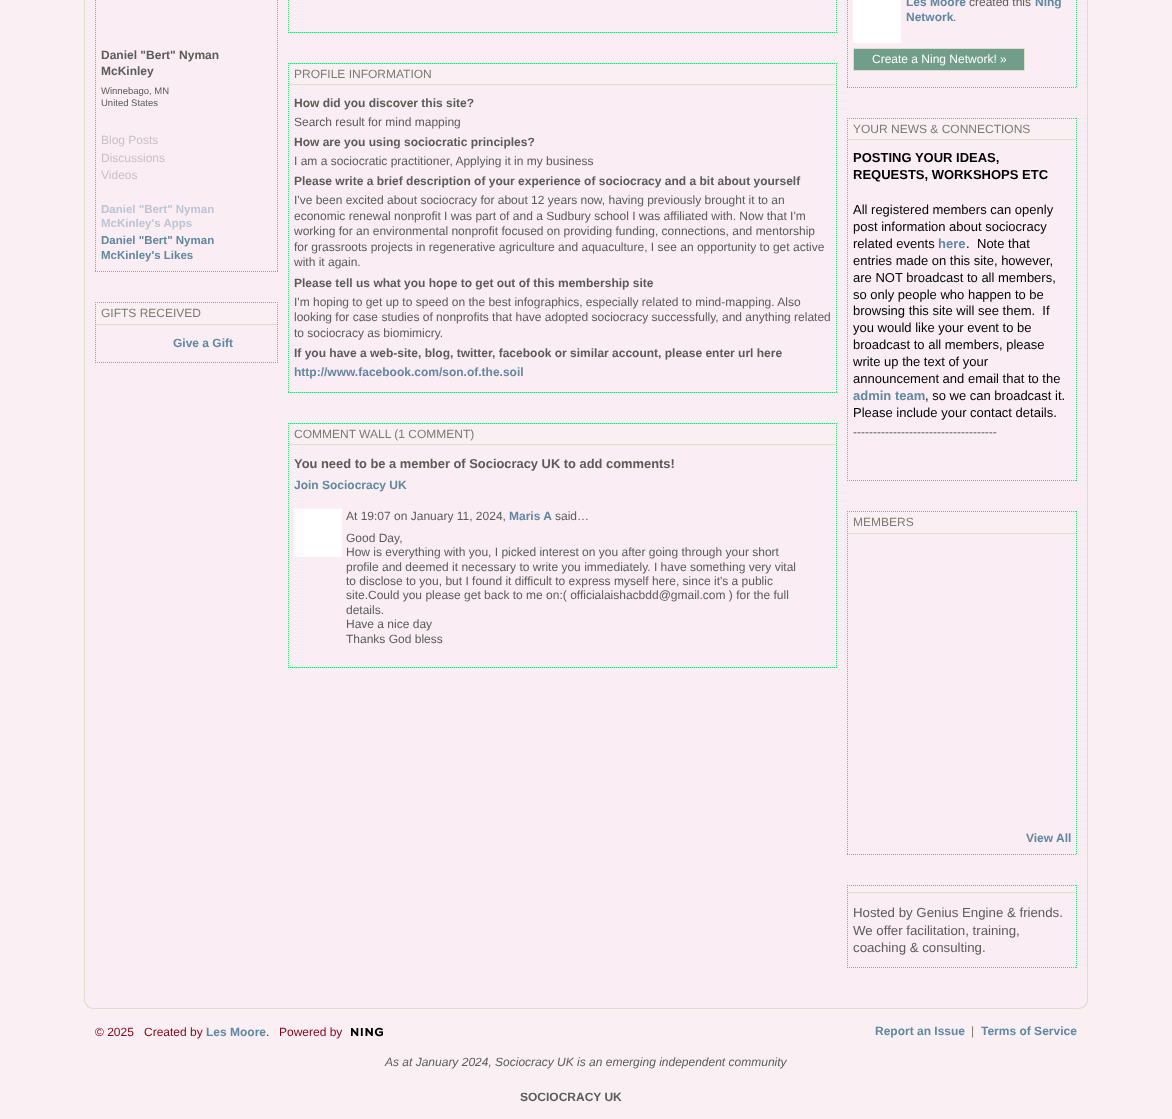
<svg xmlns="http://www.w3.org/2000/svg" width="1172" height="1119">
	<rect width="100%" height="100%" fill="#FAF0F4" />
	<path d="M85-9H1087V999C1087 1004 1083 1008 1078 1008H94C89 1008 85 1004 85 999Z" fill="#FAEDF4" />
	<path d="M84-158H1088V999C1088 1005 1084 1009 1078 1009H94C88 1009 84 1005 84 999ZM85-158H1087V999C1087 1004 1083 1008 1078 1008H94C89 1008 85 1004 85 999Z" fill="#DFDDCB" fill-rule="evenodd" />
	<path d="M277.5-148V272" fill="none" stroke="#05F565" stroke-dasharray="1 1" />
	<path d="M95 271.5H278" fill="none" stroke="#05F565" stroke-dasharray="1 1" />
	<path d="M95.5-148V272" fill="none" stroke="#05F565" stroke-dasharray="1 1" />
	<g font-family="Liberation Sans" font-size="12" font-weight="700" fill="#5B5B58">
		<text x="101" y="59">Daniel "Bert" Nyman</text>
		<text x="101" y="75">McKinley</text>
	</g>
	<g font-family="Liberation Sans" font-size="9.5" fill="#5B5B58">
		<text x="101" y="94">Winnebago, MN</text>
		<text x="101" y="106">United States</text>
	</g>
	<g font-family="Liberation Sans" font-size="12" fill="#C9C1C5">
		<text x="101" y="144">Blog Posts</text>
		<text x="101" y="162">Discussions</text>
		<text x="101" y="179">Videos</text>
	</g>
	<g font-family="Liberation Sans" font-size="11.5" font-weight="700" fill="#BDC4D3">
		<text x="101" y="213">Daniel "Bert" Nyman</text>
		<text x="101" y="227">McKinley's Apps</text>
	</g>
	<g font-family="Liberation Sans" font-size="11.5" font-weight="700" fill="#6187A1">
		<text x="101" y="244">Daniel "Bert" Nyman</text>
		<text x="101" y="259">McKinley's Likes</text>
	</g>
	<path d="M95 302.5H278" fill="none" stroke="#05F565" stroke-dasharray="1 1" />
	<path d="M277.5 302V363" fill="none" stroke="#05F565" stroke-dasharray="1 1" />
	<path d="M95 362.5H278" fill="none" stroke="#05F565" stroke-dasharray="1 1" />
	<path d="M95.5 302V363" fill="none" stroke="#05F565" stroke-dasharray="1 1" />
	<rect x="96" y="303" width="181" height="21" fill="#FAF0F4" />
	<rect x="96" y="324" width="181" height="1" fill="#DFDDCB" />
	<text x="101" y="317" font-family="Liberation Sans" font-size="12" fill="#7B7B6F">GIFTS RECEIVED</text>
	<text x="173" y="347" font-family="Liberation Sans" font-size="12" font-weight="700" fill="#6187A1">Give a Gift</text>
	<path d="M836.5-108V33" fill="none" stroke="#05F565" stroke-dasharray="1 1" />
	<path d="M288 32.5H837" fill="none" stroke="#05F565" stroke-dasharray="1 1" />
	<path d="M288.5-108V33" fill="none" stroke="#05F565" stroke-dasharray="1 1" />
	<path d="M288 63.5H837" fill="none" stroke="#05F565" stroke-dasharray="1 1" />
	<path d="M836.5 63V393" fill="none" stroke="#05F565" stroke-dasharray="1 1" />
	<path d="M288 392.5H837" fill="none" stroke="#05F565" stroke-dasharray="1 1" />
	<path d="M288.5 63V393" fill="none" stroke="#05F565" stroke-dasharray="1 1" />
	<rect x="289" y="64" width="547" height="20" fill="#FAF0F4" />
	<rect x="289" y="84" width="547" height="1" fill="#DFDDCB" />
	<text x="294" y="78" font-family="Liberation Sans" font-size="12" fill="#7B7B6F">PROFILE INFORMATION</text>
	<text x="294" y="107" font-family="Liberation Sans" font-size="12" font-weight="700" fill="#5B5B58">How did you discover this site?</text>
	<text x="294" y="126" font-family="Liberation Sans" font-size="12" fill="#5B5B58">Search result for mind mapping</text>
	<text x="294" y="146" font-family="Liberation Sans" font-size="12" font-weight="700" fill="#5B5B58">How are you using sociocratic principles?</text>
	<text x="294" y="165" font-family="Liberation Sans" font-size="12" fill="#5B5B58">I am a sociocratic practitioner, Applying it in my business</text>
	<text x="294" y="185" font-family="Liberation Sans" font-size="12" font-weight="700" fill="#5B5B58">Please write a brief description of your experience of sociocracy and a bit about yourself</text>
	<g font-family="Liberation Sans" font-size="12" fill="#5B5B58">
		<text x="294" y="204">I've been excited about sociocracy for about 12 years now, having previously brought it to an</text>
		<text x="294" y="220">economic renewal nonprofit I was part of and a Sudbury school I was affiliated with. Now that I'm</text>
		<text x="294" y="235">working for an environmental nonprofit focused on providing funding, connections, and mentorship</text>
		<text x="294" y="251">for grassroots projects in regenerative agriculture and aquaculture, I see an opportunity to get active</text>
		<text x="294" y="266">with it again.</text>
	</g>
	<text x="294" y="287" font-family="Liberation Sans" font-size="12" font-weight="700" fill="#5B5B58">Please tell us what you hope to get out of this membership site</text>
	<g font-family="Liberation Sans" font-size="12" fill="#5B5B58">
		<text x="294" y="306">I'm hoping to get up to speed on the best infographics, especially related to mind-mapping. Also</text>
		<text x="294" y="321">looking for case studies of nonprofits that have adopted sociocracy successfully, and anything related</text>
		<text x="294" y="337">to sociocracy as biomimicry.</text>
	</g>
	<text x="294" y="357" font-family="Liberation Sans" font-size="12" font-weight="700" fill="#5B5B58">If you have a web-site, blog, twitter, facebook or similar account, please enter url here</text>
	<text x="294" y="376" font-family="Liberation Sans" font-size="12" font-weight="700" fill="#6187A1">http://www.facebook.com/son.of.the.soil</text>
	<path d="M288 423.5H837" fill="none" stroke="#05F565" stroke-dasharray="1 1" />
	<path d="M836.5 423V668" fill="none" stroke="#05F565" stroke-dasharray="1 1" />
	<path d="M288 667.5H837" fill="none" stroke="#05F565" stroke-dasharray="1 1" />
	<path d="M288.5 423V668" fill="none" stroke="#05F565" stroke-dasharray="1 1" />
	<rect x="289" y="424" width="547" height="20" fill="#FAF0F4" />
	<rect x="289" y="444" width="547" height="1" fill="#DFDDCB" />
	<text x="294" y="438" font-family="Liberation Sans" font-size="12" fill="#7B7B6F">COMMENT WALL (1 COMMENT)</text>
	<text x="294" y="468" font-family="Liberation Sans" font-size="12.9" font-weight="700" fill="#5B5B58">You need to be a member of Sociocracy UK to add comments!</text>
	<text x="294" y="489" font-family="Liberation Sans" font-size="12" font-weight="700" fill="#6187A1">Join Sociocracy UK</text>
	<text x="346" y="520" font-family="Liberation Sans" font-size="12" fill="#5B5B58">At 19:07 on January 11, 2024,</text>
	<rect x="294" y="509" width="48" height="48" fill="#FFFFFF" />
	<text x="509" y="520" font-family="Liberation Sans" font-size="12" font-weight="700" fill="#6187A1">Maris A</text>
	<g font-family="Liberation Sans" font-size="12" fill="#5B5B58">
		<text x="555" y="520">said…</text>
		<text x="346" y="542">Good Day,</text>
		<text x="346" y="556">How is everything with you, I picked interest on you after going through your short</text>
		<text x="346" y="571">profile and deemed it necessary to write you immediately. I have something very vital</text>
		<text x="346" y="585">to disclose to you, but I found it difficult to express myself here, since it's a public</text>
		<text x="346" y="599">site.Could you please get back to me on:( officialaishacbdd@gmail.com ) for the full</text>
		<text x="346" y="614">details.</text>
		<text x="346" y="628">Have a nice day</text>
		<text x="346" y="643">Thanks God bless</text>
	</g>
	<path d="M1076.5-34V88" fill="none" stroke="#05F565" stroke-dasharray="1 1" />
	<path d="M847 87.5H1077" fill="none" stroke="#05F565" stroke-dasharray="1 1" />
	<path d="M847.5-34V88" fill="none" stroke="#05F565" stroke-dasharray="1 1" />
	<rect x="853" y="0" width="48" height="43" fill="#FFFFFF" />
	<text x="906" y="6" font-family="Liberation Sans" font-size="12" font-weight="700" fill="#6187A1">Les Moore</text>
	<text x="969" y="6" font-family="Liberation Sans" font-size="12" fill="#5B5B58">created this</text>
	<g font-family="Liberation Sans" font-size="12" font-weight="700" fill="#6187A1">
		<text x="1035" y="6">Ning</text>
		<text x="906" y="21">Network</text>
	</g>
	<text x="953" y="21" font-family="Liberation Sans" font-size="12" fill="#5B5B58">.</text>
	<rect x="853.5" y="48.5" width="171" height="22" fill="#709E8A" stroke="#DFDDCB" />
	<text x="872" y="63" font-family="Liberation Sans" font-size="12" fill="#FFFFFF">Create a Ning Network! »</text>
	<path d="M847 118.5H1077" fill="none" stroke="#05F565" stroke-dasharray="1 1" />
	<path d="M1076.5 118V481" fill="none" stroke="#05F565" stroke-dasharray="1 1" />
	<path d="M847 480.5H1077" fill="none" stroke="#05F565" stroke-dasharray="1 1" />
	<path d="M847.5 118V481" fill="none" stroke="#05F565" stroke-dasharray="1 1" />
	<rect x="848" y="119" width="228" height="20" fill="#FAF0F4" />
	<rect x="848" y="139" width="228" height="1" fill="#DFDDCB" />
	<text x="853" y="133" font-family="Liberation Sans" font-size="12" fill="#7B7B6F">YOUR NEWS &amp; CONNECTIONS</text>
	<g font-family="Liberation Sans" font-size="13" font-weight="700" fill="#000000">
		<text x="853" y="162">POSTING YOUR IDEAS,</text>
		<text x="853" y="179">REQUESTS, WORKSHOPS ETC</text>
	</g>
	<g font-family="Liberation Sans" font-size="13" fill="#000000">
		<text x="853" y="214">All registered members can openly</text>
		<text x="853" y="231">post information about sociocracy</text>
		<text x="853" y="248">related events</text>
	</g>
	<text x="938" y="248" font-family="Liberation Sans" font-size="13" font-weight="700" fill="#6187A1">here</text>
	<g font-family="Liberation Sans" font-size="13" fill="#000000">
		<text x="966" y="248">.</text>
		<text x="977" y="248">Note that</text>
		<text x="853" y="265">entries made on this site, however,</text>
		<text x="853" y="282">are NOT broadcast to all members,</text>
		<text x="853" y="299">so only people who happen to be</text>
		<text x="853" y="315" xml:space="preserve">browsing this site will see them.  If</text>
		<text x="853" y="332">you would like your event to be</text>
		<text x="853" y="349">broadcast to all members, please</text>
		<text x="853" y="366">write up the text of your</text>
		<text x="853" y="383">announcement and email that to the</text>
	</g>
	<text x="853" y="400" font-family="Liberation Sans" font-size="13" font-weight="700" fill="#6187A1">admin team</text>
	<g font-family="Liberation Sans" font-size="13" fill="#000000">
		<text x="925" y="400">, so we can broadcast it.</text>
		<text x="853" y="417">Please include your contact details.</text>
	</g>
	<text x="853" y="436" font-family="Liberation Sans" font-size="12" fill="#5B5B58">------------------------------------</text>
	<path d="M847 511.5H1077" fill="none" stroke="#05F565" stroke-dasharray="1 1" />
	<path d="M1076.5 511V855" fill="none" stroke="#05F565" stroke-dasharray="1 1" />
	<path d="M847 854.5H1077" fill="none" stroke="#05F565" stroke-dasharray="1 1" />
	<path d="M847.5 511V855" fill="none" stroke="#05F565" stroke-dasharray="1 1" />
	<rect x="848" y="512" width="228" height="21" fill="#FAF0F4" />
	<rect x="848" y="533" width="228" height="1" fill="#DFDDCB" />
	<text x="853" y="526" font-family="Liberation Sans" font-size="12" fill="#7B7B6F">MEMBERS</text>
	<text x="1026" y="842" font-family="Liberation Sans" font-size="12" font-weight="700" fill="#6187A1">View All</text>
	<path d="M847 885.5H1077" fill="none" stroke="#05F565" stroke-dasharray="1 1" />
	<path d="M1076.5 885V968" fill="none" stroke="#05F565" stroke-dasharray="1 1" />
	<path d="M847 967.5H1077" fill="none" stroke="#05F565" stroke-dasharray="1 1" />
	<path d="M847.5 885V968" fill="none" stroke="#05F565" stroke-dasharray="1 1" />
	<rect x="848" y="886" width="228" height="6" fill="#FAF0F4" />
	<rect x="848" y="892" width="228" height="1" fill="#DFDDCB" />
	<g font-family="Liberation Sans" font-size="13.25" fill="#5B5B58">
		<text x="853" y="917">Hosted by Genius Engine &amp; friends.</text>
		<text x="853" y="935">We offer facilitation, training,</text>
		<text x="853" y="952">coaching &amp; consulting.</text>
	</g>
	<g font-family="Liberation Sans" font-size="12" fill="#87021A">
		<text x="95" y="1036">© 2025</text>
		<text x="144" y="1036">Created by</text>
	</g>
	<text x="206" y="1036" font-family="Liberation Sans" font-size="12" font-weight="700" fill="#6187A1">Les Moore</text>
	<g font-family="Liberation Sans" font-size="12" fill="#87021A">
		<text x="266" y="1036">.</text>
		<text x="279" y="1036">Powered by</text>
	</g>
	<image x="351" y="1027" width="32" height="10" href="assets/img1.png" />
	<text x="875" y="1035" font-family="Liberation Sans" font-size="12" font-weight="700" fill="#6187A1">Report an Issue</text>
	<text x="971" y="1035" font-family="Liberation Sans" font-size="12" fill="#7B7B6F">|</text>
	<text x="981" y="1035" font-family="Liberation Sans" font-size="12" font-weight="700" fill="#6187A1">Terms of Service</text>
	<text x="385" y="1066" font-family="Liberation Sans" font-size="12" font-style="italic" fill="#5B5B58">As at January 2024, Sociocracy UK is an emerging independent community</text>
	<text x="520" y="1101" font-family="Liberation Sans" font-size="12" font-weight="700" fill="#5B5B58">SOCIOCRACY UK</text>
</svg>
